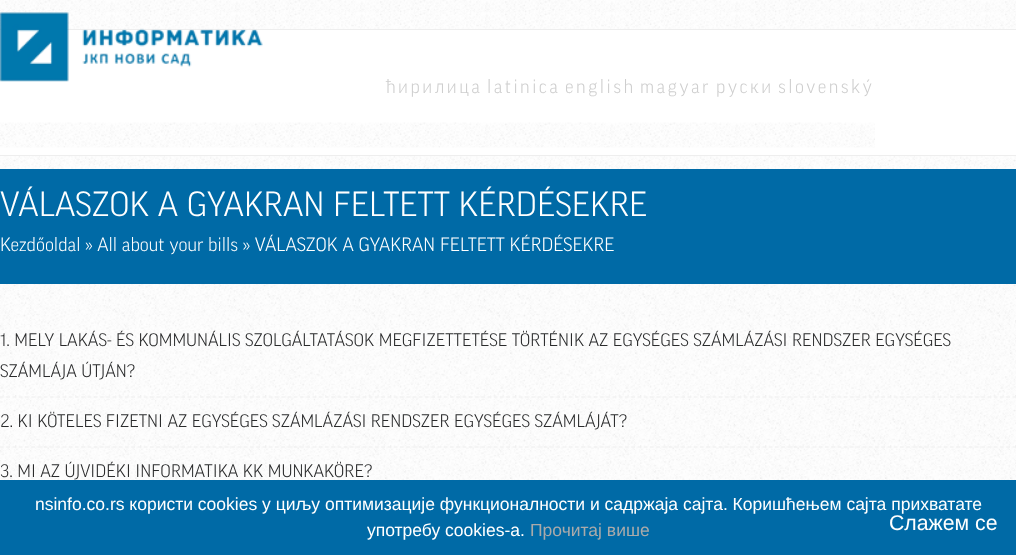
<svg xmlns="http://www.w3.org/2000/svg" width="1016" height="555">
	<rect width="100%" height="100%" fill="#FFFFFF" />
	<image x="0" y="0" width="1016" height="480" href="assets/img1.png" />
	<image x="0" y="12" width="1016" height="17" href="assets/img2.png" />
	<rect x="0" y="30" width="1016" height="125" fill="#FFFFFF" />
	<rect x="0" y="29" width="1016" height="1" fill="#EEEEEE" />
	<image x="0" y="12" width="263" height="70" href="assets/img3.png" />
	<image x="0" y="122" width="875" height="26" href="assets/img4.png" />
	<g font-family="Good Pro" font-size="18.75" font-weight="300" letter-spacing="2.5" fill="#CECECE">
		<text x="386" y="93">ћирилица</text>
		<text x="487" y="93">latinica</text>
		<text x="565" y="93">english</text>
		<text x="640" y="93">magyar</text>
		<text x="716" y="93">руски</text>
		<text x="778" y="93">slovenský</text>
	</g>
	<rect x="0" y="155" width="1016" height="1" fill="#EEEEEE" />
	<rect x="0" y="169" width="1016" height="115" fill="#006AA6" />
	<text x="0" y="216" font-family="Good Pro" font-size="33.75" font-weight="300" fill="#FFFFFF">VÁLASZOK A GYAKRAN FELTETT KÉRDÉSEKRE</text>
	<text x="0" y="251" font-family="Good Pro" font-size="18.75" font-weight="300" fill="#FFFFFF">Kezdőoldal » All about your bills » VÁLASZOK A GYAKRAN FELTETT KÉRDÉSEKRE</text>
	<path d="M0 397H1016" fill="none" stroke="#EEEEEE" stroke-width="1.2" stroke-dasharray="3.75 2.5" />
	<g font-family="Good Pro" font-size="17.5" font-weight="300" fill="#2A2B2C">
		<text x="0" y="346">1. MELY LAKÁS- ÉS KOMMUNÁLIS SZOLGÁLTATÁSOK MEGFIZETTETÉSE TÖRTÉNIK AZ EGYSÉGES SZÁMLÁZÁSI RENDSZER EGYSÉGES</text>
		<text x="0" y="377">SZÁMLÁJA ÚTJÁN?</text>
	</g>
	<path d="M0 447H1016" fill="none" stroke="#EEEEEE" stroke-width="1.2" stroke-dasharray="3.75 2.5" />
	<g font-family="Good Pro" font-size="17.5" font-weight="300" fill="#2A2B2C">
		<text x="0" y="427">2. KI KÖTELES FIZETNI AZ EGYSÉGES SZÁMLÁZÁSI RENDSZER EGYSÉGES SZÁMLÁJÁT?</text>
		<text x="0" y="477">3. MI AZ ÚJVIDÉKI INFORMATIKA KK MUNKAKÖRE?</text>
	</g>
	<rect x="0" y="480" width="1016" height="75" fill="#006AA6" />
	<g font-family="Liberation Sans" font-size="17.5" fill="#FFFFFF">
		<text x="35" y="510">nsinfo.co.rs користи cookies у циљу оптимизације функционалности и садржаја сајта. Коришћењем сајта прихватате</text>
		<text x="367" y="536">употребу cookies-a.</text>
	</g>
	<text x="530" y="536" font-family="Liberation Sans" font-size="17.5" fill="#AAAAAA">Прочитај више</text>
	<text x="889" y="530" font-family="Liberation Sans" font-size="21.25" fill="#FFFFFF">Слажем се</text>
</svg>
